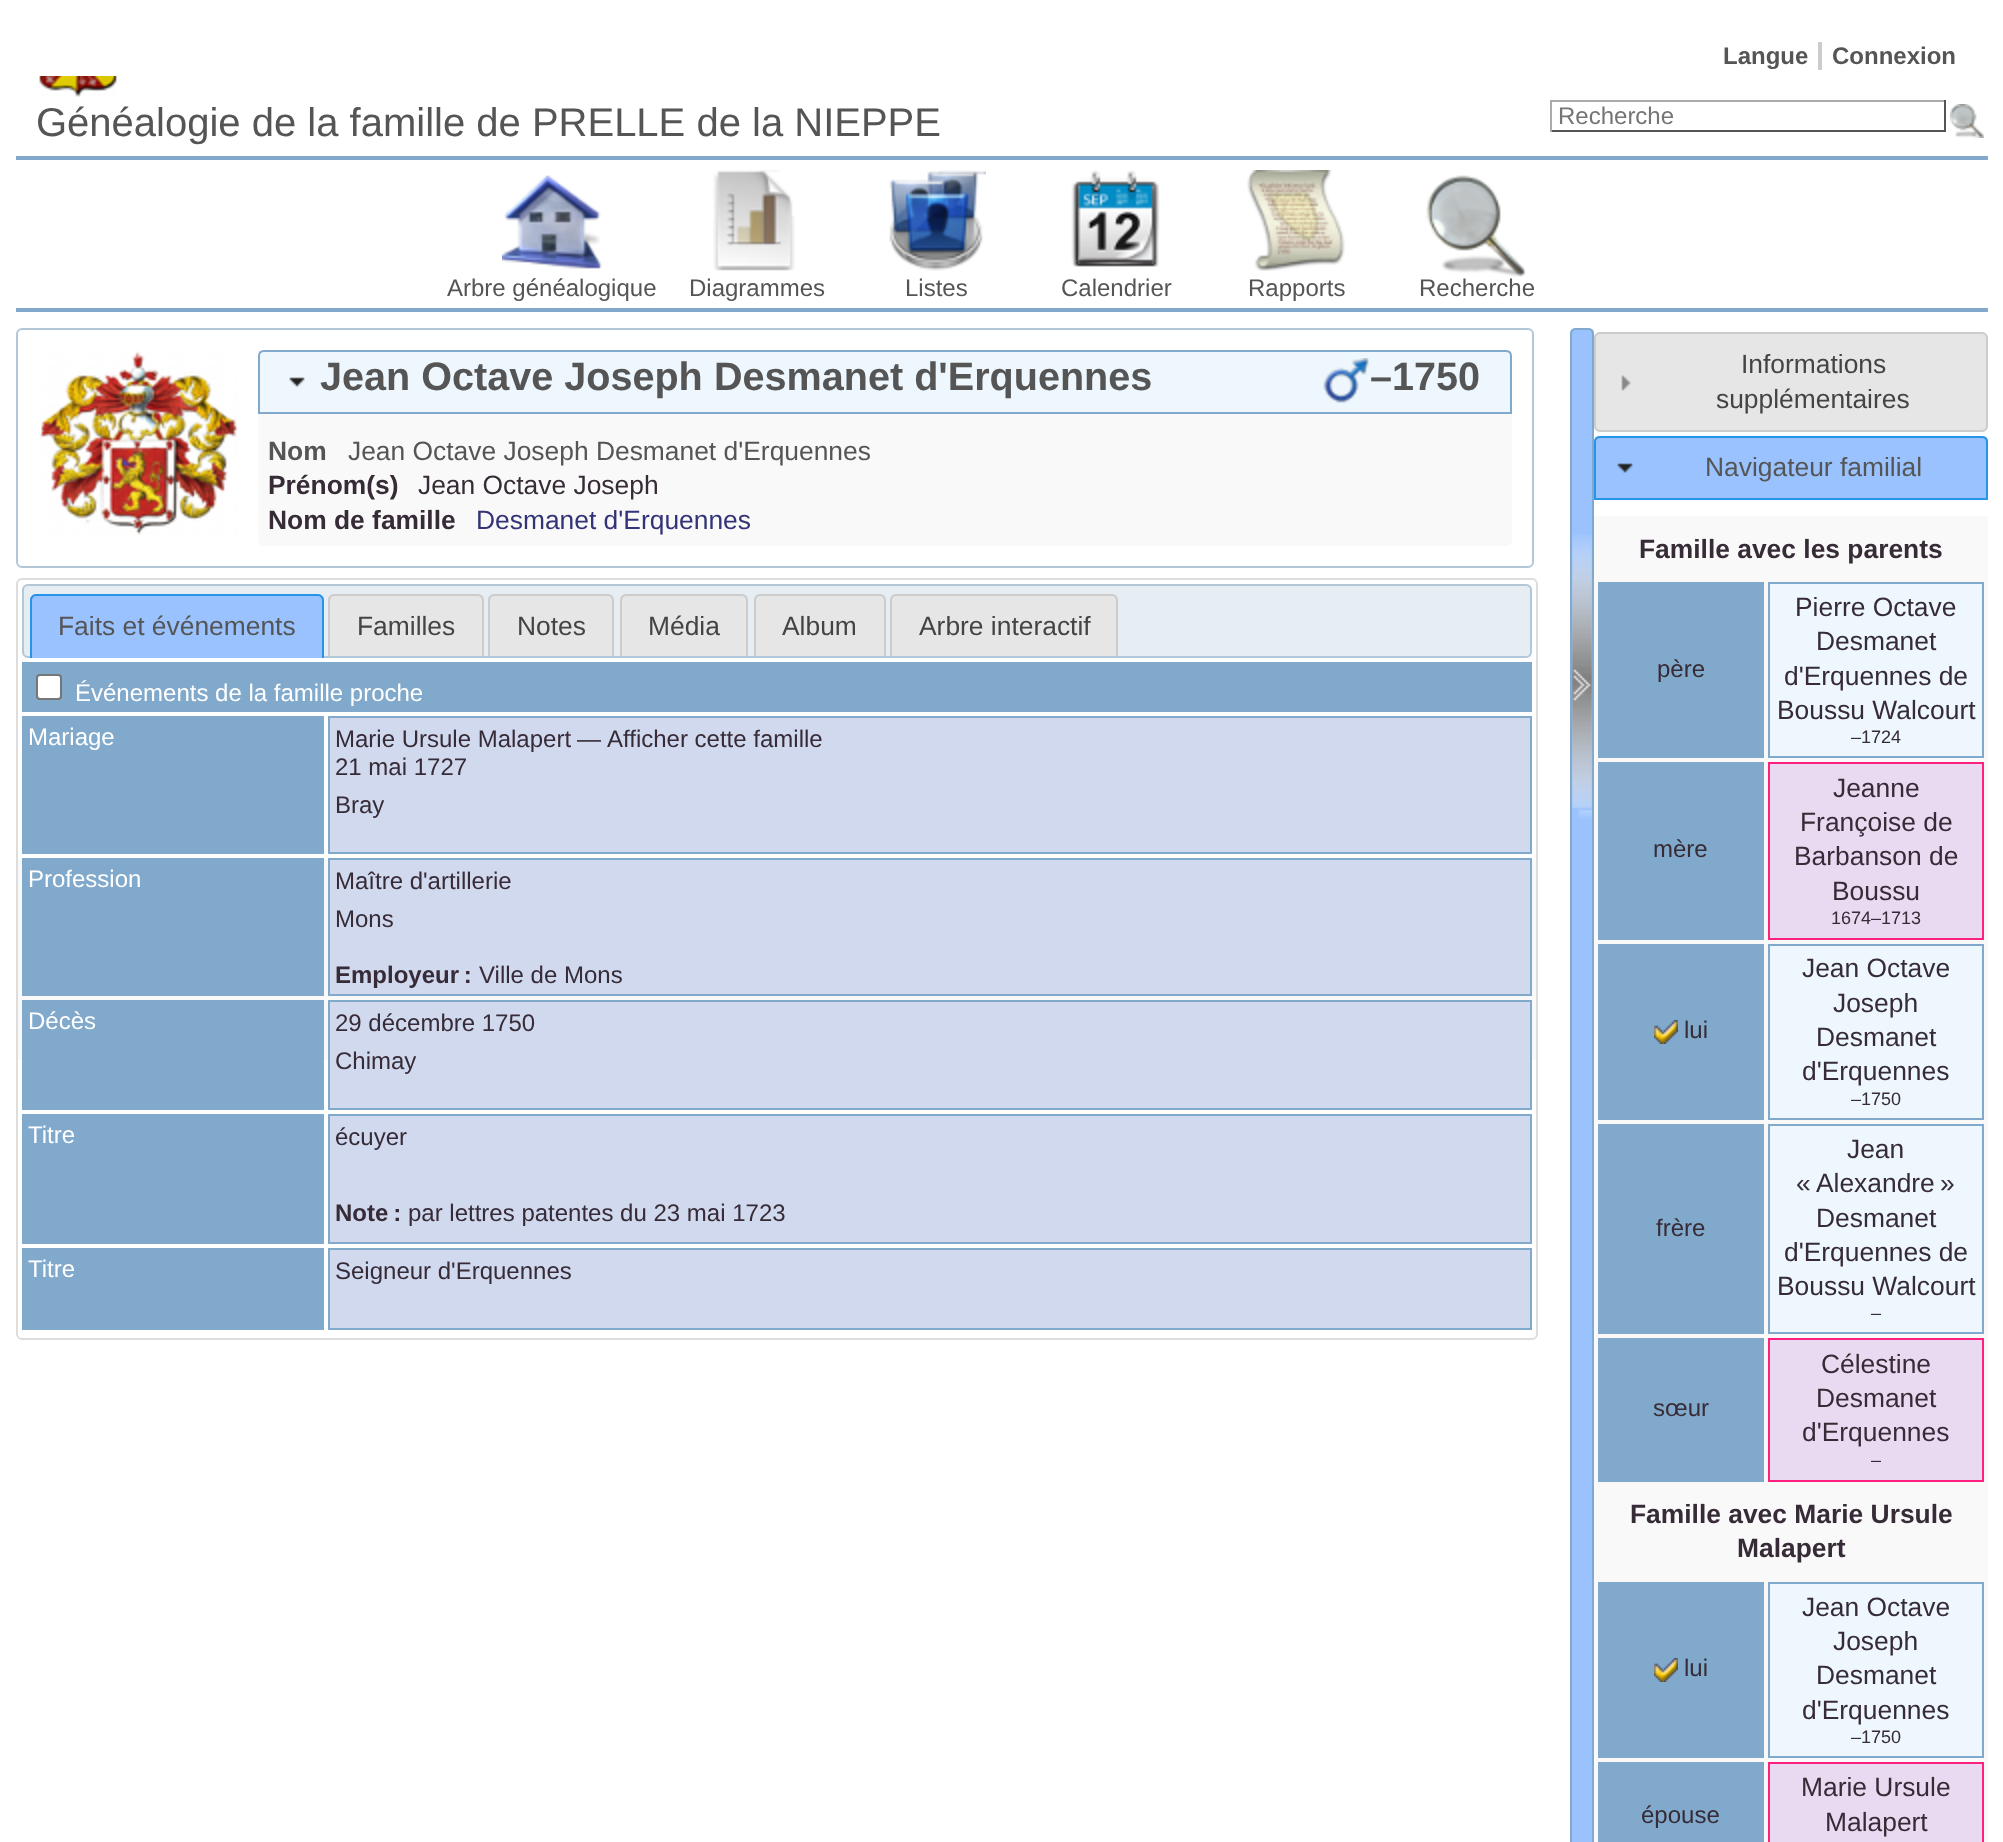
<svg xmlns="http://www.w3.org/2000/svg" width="2003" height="1842">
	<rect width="100%" height="100%" fill="#FFFFFF" />
	<g font-family="Liberation Sans" font-size="24" font-weight="700" fill="#555555">
		<text x="1723" y="64">Langue</text>
		<text x="1832" y="64">Connexion</text>
	</g>
	<rect x="1818" y="42" width="4" height="28" fill="#CCCCCC" />
	<image x="39" y="76" width="78" height="21" href="assets/img1.png" />
	<text x="36" y="136" font-family="Liberation Sans" font-size="40" fill="#555555">Généalogie de la famille de PRELLE de la NIEPPE</text>
	<rect x="1550" y="100" width="396" height="2" fill="#AAAAAA" />
	<rect x="1944" y="100" width="2" height="32" fill="#555555" />
	<rect x="1550" y="130" width="396" height="2" fill="#555555" />
	<rect x="1550" y="100" width="2" height="32" fill="#AAAAAA" />
	<text x="1558" y="124" font-family="Liberation Sans" font-size="24" fill="#757575">Recherche</text>
	<image x="1950" y="104" width="34" height="34" href="assets/img2.png" />
	<rect x="16" y="156" width="1972" height="4" fill="#81A9CB" />
	<rect x="16" y="308" width="1972" height="4" fill="#81A9CB" />
	<image x="502" y="175" width="100" height="94" href="assets/img3.png" />
	<text x="447" y="296" font-family="Liberation Sans" font-size="24" fill="#555555">Arbre généalogique</text>
	<image x="713" y="170" width="82" height="101" href="assets/img4.png" />
	<text x="689" y="296" font-family="Liberation Sans" font-size="24" fill="#555555">Diagrammes</text>
	<image x="889" y="170" width="97" height="101" href="assets/img5.png" />
	<text x="905" y="296" font-family="Liberation Sans" font-size="24" fill="#555555">Listes</text>
	<image x="1071" y="170" width="89" height="97" href="assets/img6.png" />
	<text x="1061" y="296" font-family="Liberation Sans" font-size="24" fill="#555555">Calendrier</text>
	<image x="1247" y="170" width="98" height="101" href="assets/img7.png" />
	<text x="1248" y="296" font-family="Liberation Sans" font-size="24" fill="#555555">Rapports</text>
	<image x="1426" y="175" width="100" height="102" href="assets/img8.png" />
	<text x="1419" y="296" font-family="Liberation Sans" font-size="24" fill="#555555">Recherche</text>
	<rect x="17" y="329" width="1516" height="238" rx="5" fill="none" stroke="#B2C7D7" stroke-width="2" />
	<image x="39" y="351" width="199" height="184" href="assets/img9.png" />
	<path d="M264 351H1506C1509 351 1511 353 1511 356V413H259V356C259 353 261 351 264 351Z" fill="#EDF7FD" stroke="#81A9CB" stroke-width="2" />
	<image x="289" y="377" width="16" height="10" href="assets/img10.png" />
	<g font-family="Liberation Sans" font-size="39.6" font-weight="700" fill="#555555">
		<text x="320" y="390">Jean Octave Joseph</text>
		<text x="714" y="390">Desmanet d'Erquennes</text>
	</g>
	<image x="1323" y="358" width="46" height="45" href="assets/img11.png" />
	<text x="1370" y="390" font-family="Liberation Sans" font-size="39.6" font-weight="700" fill="#555555">–1750</text>
	<path d="M258 414H1512V540C1512 543.5 1509.5 546 1506 546H264C260.5 546 258 543.5 258 540Z" fill="#F9F9F9" />
	<text x="268" y="460" font-family="Liberation Sans" font-size="26.4" font-weight="700" fill="#555555">Nom</text>
	<text x="348" y="460" font-family="Liberation Sans" font-size="26.4" fill="#555555">Jean Octave Joseph Desmanet d'Erquennes</text>
	<text x="268" y="494" font-family="Liberation Sans" font-size="26.4" font-weight="700" fill="#362B36">Prénom(s)</text>
	<text x="418" y="494" font-family="Liberation Sans" font-size="26.4" fill="#362B36">Jean Octave Joseph</text>
	<text x="268" y="529" font-family="Liberation Sans" font-size="26.4" font-weight="700" fill="#362B36">Nom de famille</text>
	<text x="476" y="529" font-family="Liberation Sans" font-size="26.4" fill="#333377">Desmanet d'Erquennes</text>
	<rect x="18" y="860" width="1518" height="200" fill="#F9F9F9" />
	<rect x="17" y="579" width="1520" height="760" rx="5" fill="none" stroke="#DDDDDD" stroke-width="2" />
	<image x="22" y="584" width="1510" height="74" href="assets/img12.png" />
	<rect x="23" y="585" width="1508" height="72" rx="5" fill="none" stroke="#B2C7D7" stroke-width="2" />
	<image x="30" y="594" width="294" height="64" href="assets/img13.png" />
	<path d="M36 594H318C321 594 324 597 324 600V658H30V600C30 597 33 594 36 594ZM36 596H318C320 596 322 598 322 600V658H32V600C32 598 34 596 36 596Z" fill="#2694E8" fill-rule="evenodd" />
	<text x="58" y="635" font-family="Liberation Sans" font-size="26.4" fill="#555555">Faits et événements</text>
	<image x="328" y="594" width="156" height="62" href="assets/img14.png" />
	<path d="M334 594H478C481 594 484 597 484 600V656H328V600C328 597 331 594 334 594ZM334 596H478C480 596 482 598 482 600V656H330V600C330 598 332 596 334 596Z" fill="#CCCCCC" fill-rule="evenodd" />
	<text x="357" y="635" font-family="Liberation Sans" font-size="26.4" fill="#444444">Familles</text>
	<image x="488" y="594" width="126" height="62" href="assets/img15.png" />
	<path d="M494 594H608C611 594 614 597 614 600V656H488V600C488 597 491 594 494 594ZM494 596H608C610 596 612 598 612 600V656H490V600C490 598 492 596 494 596Z" fill="#CCCCCC" fill-rule="evenodd" />
	<text x="517" y="635" font-family="Liberation Sans" font-size="26.4" fill="#444444">Notes</text>
	<image x="620" y="594" width="128" height="62" href="assets/img16.png" />
	<path d="M626 594H742C745 594 748 597 748 600V656H620V600C620 597 623 594 626 594ZM626 596H742C744 596 746 598 746 600V656H622V600C622 598 624 596 626 596Z" fill="#CCCCCC" fill-rule="evenodd" />
	<text x="648" y="635" font-family="Liberation Sans" font-size="26.4" fill="#444444">Média</text>
	<image x="754" y="594" width="132" height="62" href="assets/img17.png" />
	<path d="M760 594H880C883 594 886 597 886 600V656H754V600C754 597 757 594 760 594ZM760 596H880C882 596 884 598 884 600V656H756V600C756 598 758 596 760 596Z" fill="#CCCCCC" fill-rule="evenodd" />
	<text x="782" y="635" font-family="Liberation Sans" font-size="26.4" fill="#444444">Album</text>
	<image x="890" y="594" width="228" height="62" href="assets/img18.png" />
	<path d="M896 594H1112C1115 594 1118 597 1118 600V656H890V600C890 597 893 594 896 594ZM896 596H1112C1114 596 1116 598 1116 600V656H892V600C892 598 894 596 896 596Z" fill="#CCCCCC" fill-rule="evenodd" />
	<text x="919" y="635" font-family="Liberation Sans" font-size="26.4" fill="#444444">Arbre interactif</text>
	<rect x="22" y="662" width="1510" height="50" fill="#81A9CB" />
	<rect x="37" y="675" width="24" height="24" rx="3" fill="#FFFFFF" stroke="#767676" stroke-width="2" />
	<text x="75" y="701" font-family="Liberation Sans" font-size="24" fill="#FFFFFF">Événements de la famille proche</text>
	<rect x="22" y="716" width="302" height="138" fill="#81A9CB" />
	<text x="28" y="745" font-family="Liberation Sans" font-size="24" fill="#FFFFFF">Mariage</text>
	<rect x="329" y="717" width="1202" height="136" fill="#D1D9EF" stroke="#81A9CB" stroke-width="2" />
	<g font-family="Liberation Sans" font-size="24" fill="#362B36">
		<text x="335" y="747">Marie Ursule Malapert</text>
		<text x="577" y="747">—</text>
		<text x="607" y="747">Afficher cette famille</text>
		<text x="335" y="775">21 mai 1727</text>
		<text x="335" y="813">Bray</text>
	</g>
	<rect x="22" y="858" width="302" height="138" fill="#81A9CB" />
	<text x="28" y="887" font-family="Liberation Sans" font-size="24" fill="#FFFFFF">Profession</text>
	<rect x="329" y="859" width="1202" height="136" fill="#D1D9EF" stroke="#81A9CB" stroke-width="2" />
	<g font-family="Liberation Sans" font-size="24" fill="#362B36">
		<text x="335" y="889">Maître d'artillerie</text>
		<text x="335" y="927">Mons</text>
	</g>
	<text x="335" y="983" font-family="Liberation Sans" font-size="24" font-weight="700" fill="#362B36">Employeur :</text>
	<text x="479" y="983" font-family="Liberation Sans" font-size="24" fill="#362B36">Ville de Mons</text>
	<rect x="22" y="1000" width="302" height="110" fill="#81A9CB" />
	<text x="28" y="1029" font-family="Liberation Sans" font-size="24" fill="#FFFFFF">Décès</text>
	<rect x="329" y="1001" width="1202" height="108" fill="#D1D9EF" stroke="#81A9CB" stroke-width="2" />
	<g font-family="Liberation Sans" font-size="24" fill="#362B36">
		<text x="335" y="1031">29 décembre 1750</text>
		<text x="335" y="1069">Chimay</text>
	</g>
	<rect x="22" y="1114" width="302" height="130" fill="#81A9CB" />
	<text x="28" y="1143" font-family="Liberation Sans" font-size="24" fill="#FFFFFF">Titre</text>
	<rect x="329" y="1115" width="1202" height="128" fill="#D1D9EF" stroke="#81A9CB" stroke-width="2" />
	<text x="335" y="1145" font-family="Liberation Sans" font-size="24" fill="#362B36">écuyer</text>
	<text x="335" y="1221" font-family="Liberation Sans" font-size="24" font-weight="700" fill="#362B36">Note :</text>
	<text x="408" y="1221" font-family="Liberation Sans" font-size="24" fill="#362B36">par lettres patentes du 23 mai 1723</text>
	<rect x="22" y="1248" width="302" height="82" fill="#81A9CB" />
	<text x="28" y="1277" font-family="Liberation Sans" font-size="24" fill="#FFFFFF">Titre</text>
	<rect x="329" y="1249" width="1202" height="80" fill="#D1D9EF" stroke="#81A9CB" stroke-width="2" />
	<text x="335" y="1279" font-family="Liberation Sans" font-size="24" fill="#362B36">Seigneur d'Erquennes</text>
	<path d="M1576 328H1588C1591.5 328 1594 330.5 1594 334V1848H1570V334C1570 330.5 1572.5 328 1576 328Z" fill="#99C2FF" />
	<image x="1572" y="534" width="20" height="285" href="assets/img19.png" />
	<path d="M1576 329H1588C1591 329 1593 331 1593 334V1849H1571V334C1571 331 1573 329 1576 329Z" fill="none" stroke="#81A9CB" stroke-width="2" />
	<image x="1594" y="332" width="394" height="100" href="assets/img20.png" />
	<rect x="1595" y="333" width="392" height="98" rx="5" fill="none" stroke="#CCCCCC" stroke-width="2" />
	<text x="1741" y="373" font-family="Liberation Sans" font-size="26.4" fill="#444444">Informations</text>
	<image x="1621" y="375" width="10" height="16" href="assets/img21.png" />
	<text x="1716" y="408" font-family="Liberation Sans" font-size="26.4" fill="#444444">supplémentaires</text>
	<path d="M1600 436H1982C1985.5 436 1988 438.5 1988 442V500H1594V442C1594 438.5 1596.5 436 1600 436Z" fill="#99C2FF" />
	<image x="1594" y="436" width="394" height="6" href="assets/img22.png" />
	<path d="M1600 437H1982C1985 437 1987 439 1987 442V499H1595V442C1595 439 1597 437 1600 437Z" fill="none" stroke="#2694E8" stroke-width="2" />
	<image x="1617" y="463" width="16" height="10" href="assets/img23.png" />
	<text x="1705" y="476" font-family="Liberation Sans" font-size="26.4" fill="#555555">Navigateur familial</text>
	<rect x="1594" y="516" width="394" height="1326" fill="#F9F9F9" />
	<text x="1639" y="558" font-family="Liberation Sans" font-size="26.4" font-weight="700" fill="#362B36">Famille avec les parents</text>
	<rect x="1598" y="582" width="166" height="176" fill="#81A9CB" />
	<text x="1657" y="677" font-family="Liberation Sans" font-size="24" fill="#362B36">père</text>
	<rect x="1769" y="583" width="214" height="174" fill="#EDF7FD" stroke="#81A9CB" stroke-width="2" />
	<g font-family="Liberation Sans" font-size="26.4" fill="#362B36">
		<text x="1795" y="616">Pierre Octave</text>
		<text x="1816" y="650">Desmanet</text>
		<text x="1784" y="685">d'Erquennes de</text>
		<text x="1777" y="719">Boussu Walcourt</text>
	</g>
	<text x="1851" y="743" font-family="Liberation Sans" font-size="18" fill="#362B36">–1724</text>
	<rect x="1598" y="762" width="166" height="178" fill="#81A9CB" />
	<text x="1653" y="857" font-family="Liberation Sans" font-size="24" fill="#362B36">mère</text>
	<rect x="1769" y="763" width="214" height="176" fill="#E9DAF1" stroke="#FF2080" stroke-width="2" />
	<g font-family="Liberation Sans" font-size="26.4" fill="#362B36">
		<text x="1833" y="797">Jeanne</text>
		<text x="1800" y="831">Françoise de</text>
		<text x="1794" y="865">Barbanson de</text>
		<text x="1832" y="900">Boussu</text>
	</g>
	<text x="1831" y="924" font-family="Liberation Sans" font-size="18" fill="#362B36">1674–1713</text>
	<rect x="1598" y="944" width="166" height="176" fill="#81A9CB" />
	<image x="1654" y="1020" width="24" height="24" href="assets/img24.png" />
	<text x="1684" y="1038" font-family="Liberation Sans" font-size="24" fill="#362B36">lui</text>
	<rect x="1769" y="945" width="214" height="174" fill="#EDF7FD" stroke="#81A9CB" stroke-width="2" />
	<g font-family="Liberation Sans" font-size="26.4" fill="#362B36">
		<text x="1802" y="977">Jean Octave</text>
		<text x="1833" y="1012">Joseph</text>
		<text x="1816" y="1046">Desmanet</text>
		<text x="1802" y="1080">d'Erquennes</text>
	</g>
	<text x="1851" y="1105" font-family="Liberation Sans" font-size="18" fill="#362B36">–1750</text>
	<rect x="1598" y="1124" width="166" height="210" fill="#81A9CB" />
	<text x="1656" y="1236" font-family="Liberation Sans" font-size="24" fill="#362B36">frère</text>
	<rect x="1769" y="1125" width="214" height="208" fill="#EDF7FD" stroke="#81A9CB" stroke-width="2" />
	<g font-family="Liberation Sans" font-size="26.4" fill="#362B36">
		<text x="1847" y="1158">Jean</text>
		<text x="1796" y="1192">« Alexandre »</text>
		<text x="1816" y="1227">Desmanet</text>
		<text x="1784" y="1261">d'Erquennes de</text>
		<text x="1777" y="1295">Boussu Walcourt</text>
	</g>
	<text x="1871" y="1319" font-family="Liberation Sans" font-size="18" fill="#362B36">–</text>
	<rect x="1598" y="1338" width="166" height="144" fill="#81A9CB" />
	<text x="1653" y="1416" font-family="Liberation Sans" font-size="24" fill="#362B36">sœur</text>
	<rect x="1769" y="1339" width="214" height="142" fill="#E9DAF1" stroke="#FF2080" stroke-width="2" />
	<g font-family="Liberation Sans" font-size="26.4" fill="#362B36">
		<text x="1821" y="1373">Célestine</text>
		<text x="1816" y="1407">Desmanet</text>
		<text x="1802" y="1441">d'Erquennes</text>
	</g>
	<text x="1871" y="1466" font-family="Liberation Sans" font-size="18" fill="#362B36">–</text>
	<g font-family="Liberation Sans" font-size="26.4" font-weight="700" fill="#362B36">
		<text x="1630" y="1523">Famille avec Marie Ursule</text>
		<text x="1737" y="1557">Malapert</text>
	</g>
	<rect x="1598" y="1582" width="166" height="176" fill="#81A9CB" />
	<image x="1654" y="1658" width="24" height="24" href="assets/img24.png" />
	<text x="1684" y="1676" font-family="Liberation Sans" font-size="24" fill="#362B36">lui</text>
	<rect x="1769" y="1583" width="214" height="174" fill="#EDF7FD" stroke="#81A9CB" stroke-width="2" />
	<g font-family="Liberation Sans" font-size="26.4" fill="#362B36">
		<text x="1802" y="1616">Jean Octave</text>
		<text x="1833" y="1650">Joseph</text>
		<text x="1816" y="1684">Desmanet</text>
		<text x="1802" y="1719">d'Erquennes</text>
	</g>
	<text x="1851" y="1743" font-family="Liberation Sans" font-size="18" fill="#362B36">–1750</text>
	<rect x="1598" y="1762" width="166" height="80" fill="#81A9CB" />
	<text x="1641" y="1823" font-family="Liberation Sans" font-size="24" fill="#362B36">épouse</text>
	<rect x="1769" y="1763" width="214" height="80" fill="#E9DAF1" stroke="#FF2080" stroke-width="2" />
	<g font-family="Liberation Sans" font-size="26.4" fill="#362B36">
		<text x="1801" y="1796">Marie Ursule</text>
		<text x="1825" y="1831">Malapert</text>
	</g>
</svg>
